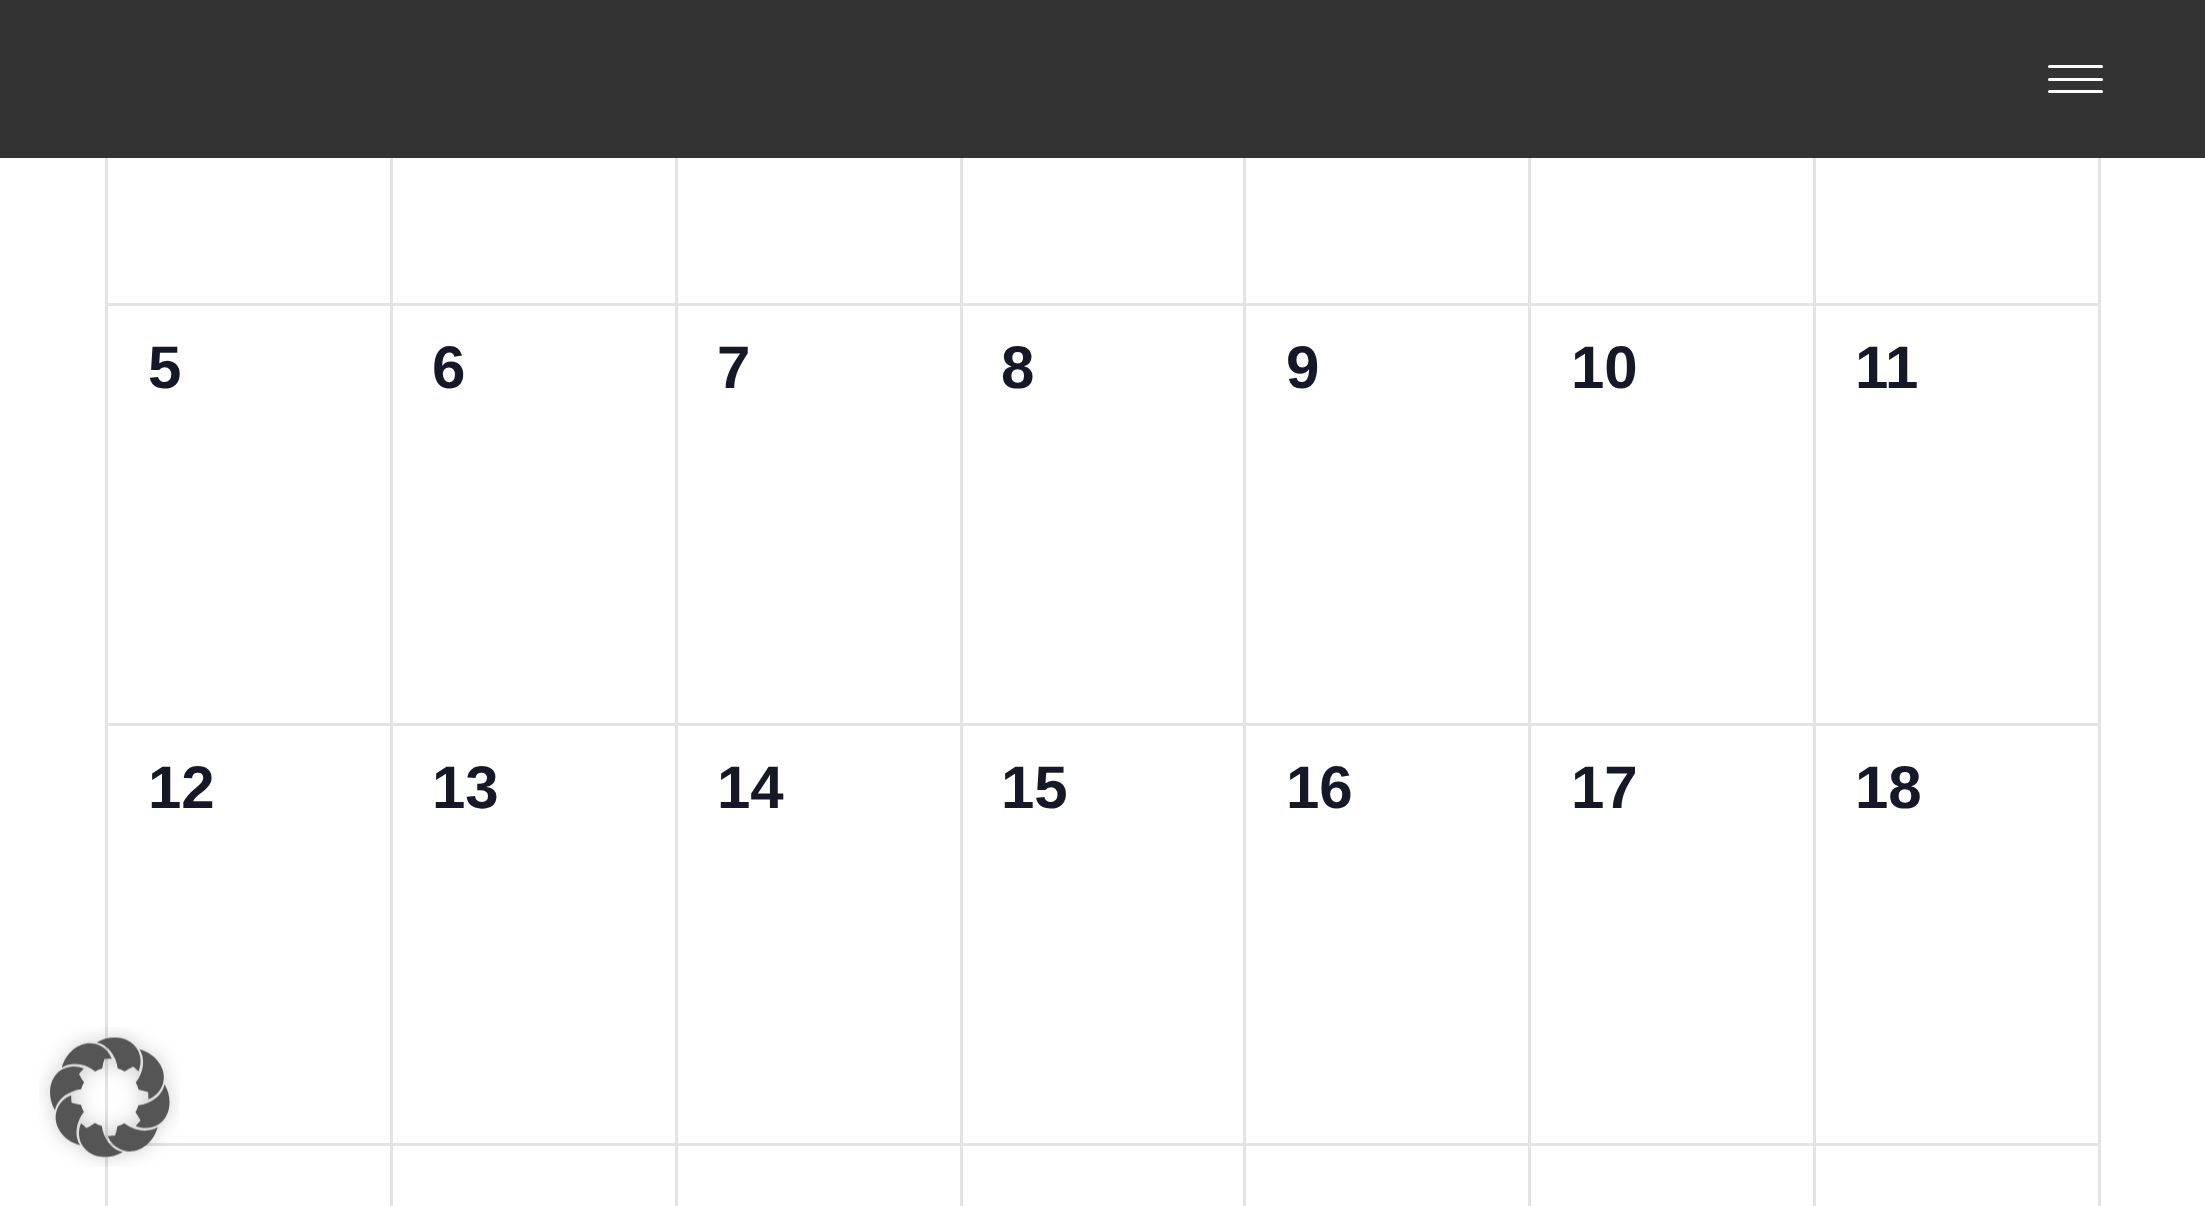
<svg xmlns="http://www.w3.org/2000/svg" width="2205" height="1206">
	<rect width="100%" height="100%" fill="#FFFFFF" />
	<rect x="0" y="0" width="2205" height="158" fill="#333333" />
	<rect x="2048" y="65" width="55" height="3" rx="1.5" fill="#FFFFFF" />
	<rect x="2048" y="78" width="55" height="3" rx="1.5" fill="#FFFFFF" />
	<rect x="2048" y="90" width="55" height="3" rx="1.5" fill="#FFFFFF" />
	<rect x="105" y="158" width="3" height="987" fill="#E4E4E4" />
	<rect x="390" y="158" width="3" height="147" fill="#E4E4E4" />
	<rect x="108" y="303" width="285" height="3" fill="#E4E4E4" />
	<rect x="675" y="158" width="3" height="147" fill="#E4E4E4" />
	<rect x="393" y="303" width="285" height="3" fill="#E4E4E4" />
	<rect x="960" y="158" width="3" height="147" fill="#E4E4E4" />
	<rect x="678" y="303" width="285" height="3" fill="#E4E4E4" />
	<rect x="1243" y="158" width="3" height="147" fill="#E4E4E4" />
	<rect x="963" y="303" width="282" height="3" fill="#E4E4E4" />
	<rect x="1528" y="158" width="3" height="147" fill="#E4E4E4" />
	<rect x="1245" y="303" width="285" height="3" fill="#E4E4E4" />
	<rect x="1813" y="158" width="3" height="147" fill="#E4E4E4" />
	<rect x="1530" y="303" width="285" height="3" fill="#E4E4E4" />
	<rect x="2098" y="158" width="3" height="147" fill="#E4E4E4" />
	<rect x="1815" y="303" width="285" height="3" fill="#E4E4E4" />
	<rect x="390" y="305" width="3" height="420" fill="#E4E4E4" />
	<rect x="108" y="723" width="285" height="3" fill="#E4E4E4" />
	<text x="148" y="388" font-family="Liberation Sans" font-size="60" font-weight="700" fill="#141827">5</text>
	<rect x="675" y="305" width="3" height="420" fill="#E4E4E4" />
	<rect x="393" y="723" width="285" height="3" fill="#E4E4E4" />
	<text x="432" y="388" font-family="Liberation Sans" font-size="60" font-weight="700" fill="#141827">6</text>
	<rect x="960" y="305" width="3" height="420" fill="#E4E4E4" />
	<rect x="678" y="723" width="285" height="3" fill="#E4E4E4" />
	<text x="717" y="388" font-family="Liberation Sans" font-size="60" font-weight="700" fill="#141827">7</text>
	<rect x="1243" y="305" width="3" height="420" fill="#E4E4E4" />
	<rect x="963" y="723" width="282" height="3" fill="#E4E4E4" />
	<text x="1001" y="388" font-family="Liberation Sans" font-size="60" font-weight="700" fill="#141827">8</text>
	<rect x="1528" y="305" width="3" height="420" fill="#E4E4E4" />
	<rect x="1245" y="723" width="285" height="3" fill="#E4E4E4" />
	<text x="1286" y="388" font-family="Liberation Sans" font-size="60" font-weight="700" fill="#141827">9</text>
	<rect x="1813" y="305" width="3" height="420" fill="#E4E4E4" />
	<rect x="1530" y="723" width="285" height="3" fill="#E4E4E4" />
	<text x="1571" y="388" font-family="Liberation Sans" font-size="60" font-weight="700" fill="#141827">10</text>
	<rect x="2098" y="305" width="3" height="420" fill="#E4E4E4" />
	<rect x="1815" y="723" width="285" height="3" fill="#E4E4E4" />
	<text x="1855" y="388" font-family="Liberation Sans" font-size="60" font-weight="700" fill="#141827">11</text>
	<rect x="390" y="725" width="3" height="420" fill="#E4E4E4" />
	<rect x="108" y="1143" width="285" height="3" fill="#E4E4E4" />
	<text x="148" y="808" font-family="Liberation Sans" font-size="60" font-weight="700" fill="#141827">12</text>
	<rect x="675" y="725" width="3" height="420" fill="#E4E4E4" />
	<rect x="393" y="1143" width="285" height="3" fill="#E4E4E4" />
	<text x="432" y="808" font-family="Liberation Sans" font-size="60" font-weight="700" fill="#141827">13</text>
	<rect x="960" y="725" width="3" height="420" fill="#E4E4E4" />
	<rect x="678" y="1143" width="285" height="3" fill="#E4E4E4" />
	<text x="717" y="808" font-family="Liberation Sans" font-size="60" font-weight="700" fill="#141827">14</text>
	<rect x="1243" y="725" width="3" height="420" fill="#E4E4E4" />
	<rect x="963" y="1143" width="282" height="3" fill="#E4E4E4" />
	<text x="1001" y="808" font-family="Liberation Sans" font-size="60" font-weight="700" fill="#141827">15</text>
	<rect x="1528" y="725" width="3" height="420" fill="#E4E4E4" />
	<rect x="1245" y="1143" width="285" height="3" fill="#E4E4E4" />
	<text x="1286" y="808" font-family="Liberation Sans" font-size="60" font-weight="700" fill="#141827">16</text>
	<rect x="1813" y="725" width="3" height="420" fill="#E4E4E4" />
	<rect x="1530" y="1143" width="285" height="3" fill="#E4E4E4" />
	<text x="1571" y="808" font-family="Liberation Sans" font-size="60" font-weight="700" fill="#141827">17</text>
	<rect x="2098" y="725" width="3" height="420" fill="#E4E4E4" />
	<rect x="1815" y="1143" width="285" height="3" fill="#E4E4E4" />
	<text x="1855" y="808" font-family="Liberation Sans" font-size="60" font-weight="700" fill="#141827">18</text>
	<rect x="105" y="1156" width="3" height="50" fill="#E4E4E4" />
	<rect x="390" y="1145" width="3" height="61" fill="#E4E4E4" />
	<rect x="675" y="1145" width="3" height="61" fill="#E4E4E4" />
	<rect x="960" y="1145" width="3" height="61" fill="#E4E4E4" />
	<rect x="1243" y="1145" width="3" height="61" fill="#E4E4E4" />
	<rect x="1528" y="1145" width="3" height="61" fill="#E4E4E4" />
	<rect x="1813" y="1145" width="3" height="61" fill="#E4E4E4" />
	<rect x="2098" y="1145" width="3" height="61" fill="#E4E4E4" />
	<image x="39" y="1027" width="141" height="140" href="assets/img1.png" />
</svg>
